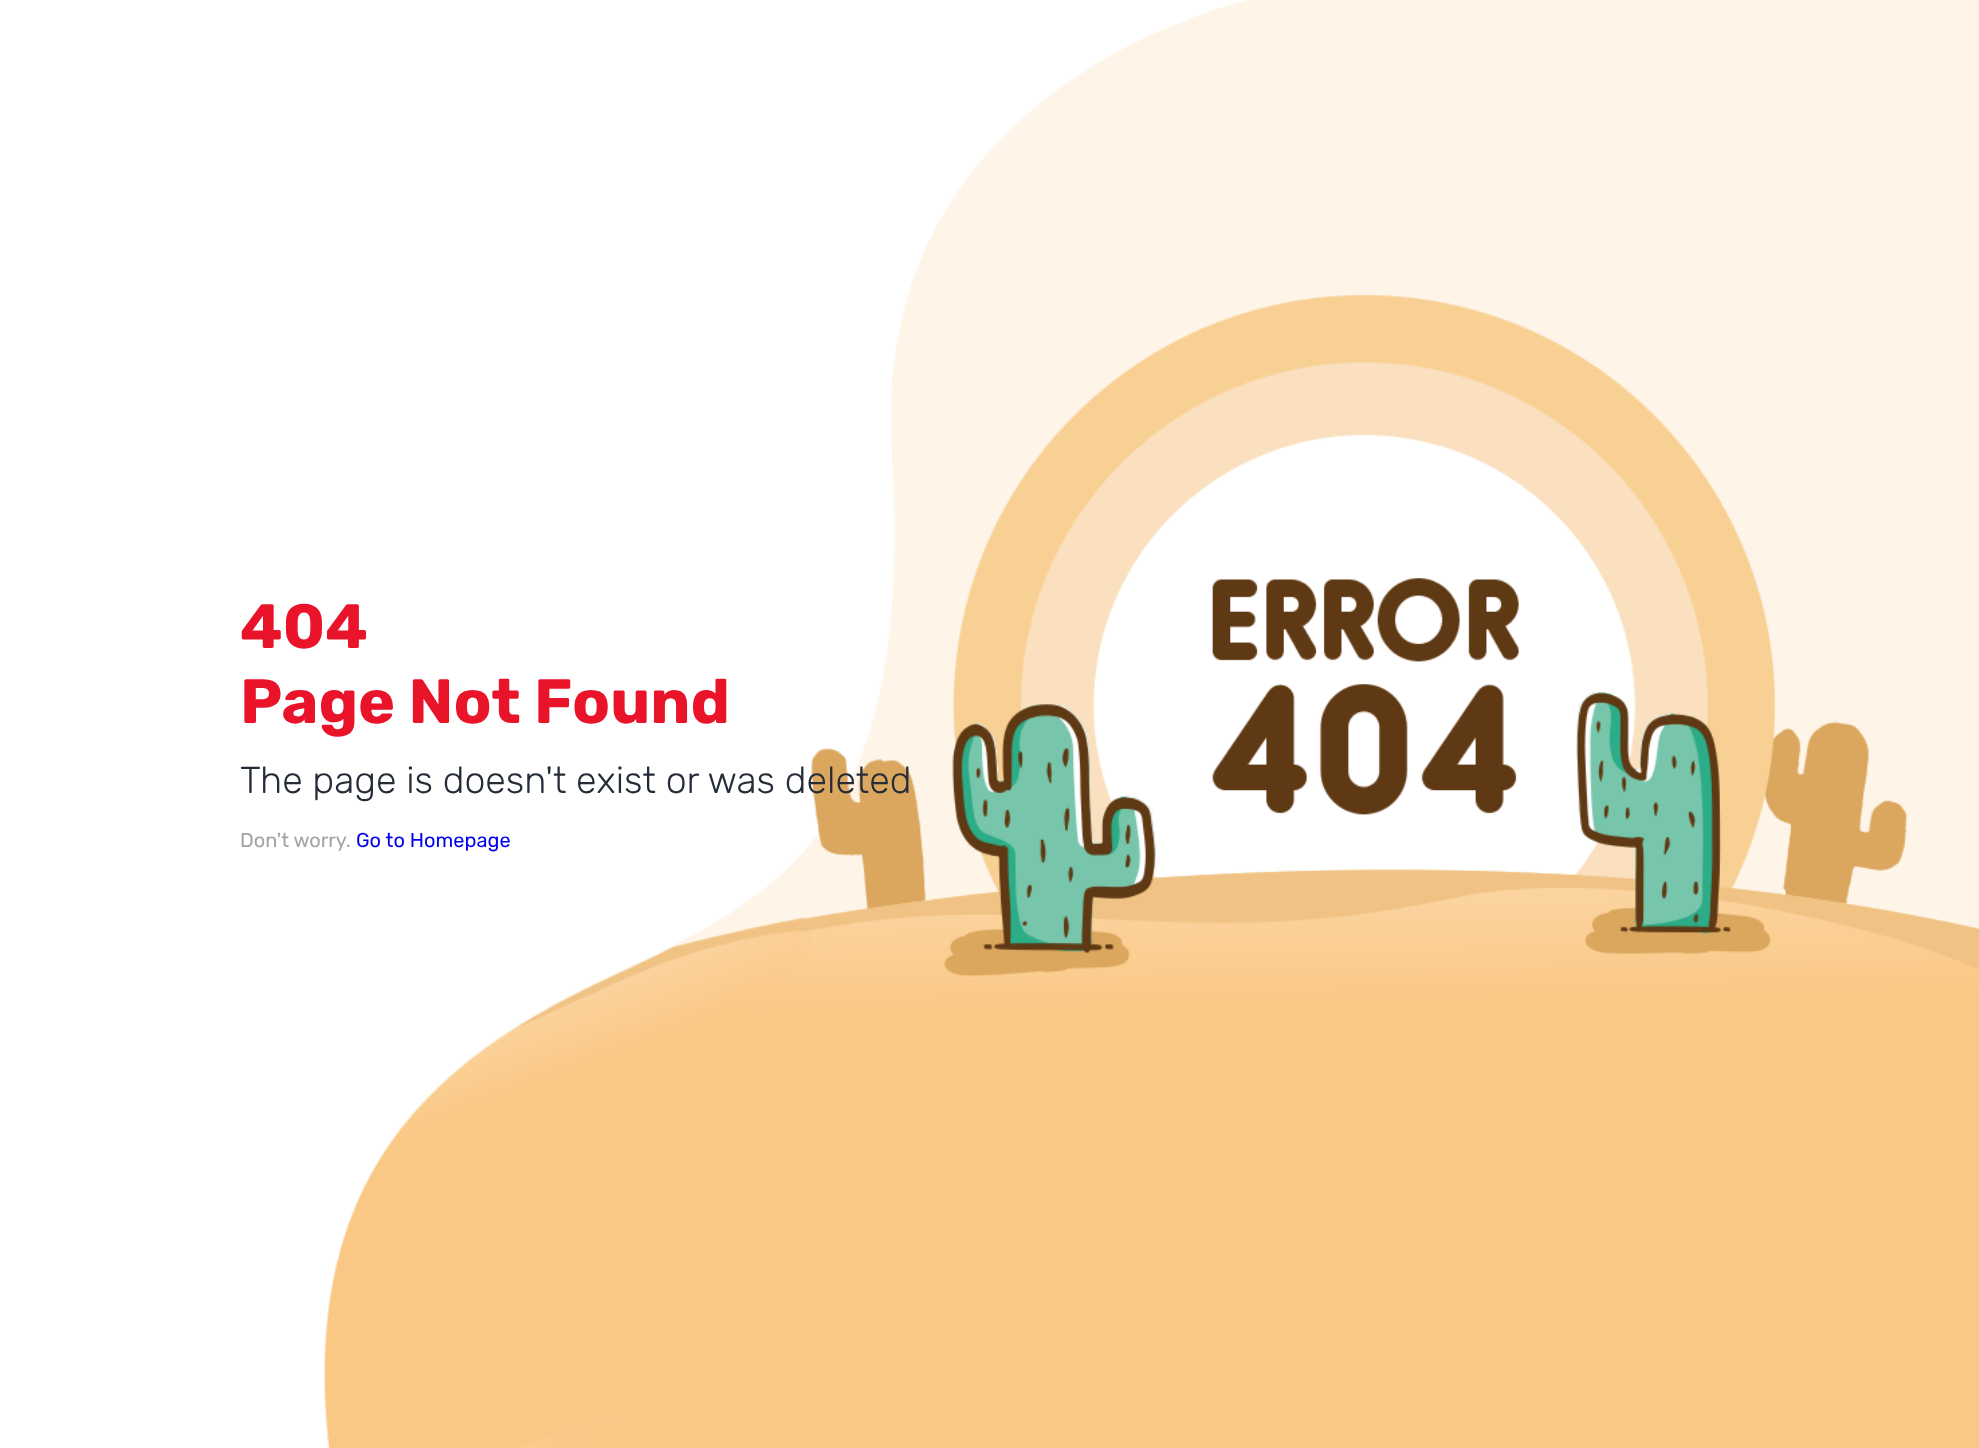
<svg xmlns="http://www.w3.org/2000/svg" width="1979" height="1448">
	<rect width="100%" height="100%" fill="#FFFFFF" />
	<image x="324" y="0" width="1655" height="1448" href="assets/img1.png" />
	<g font-family="Rubik" font-size="62.5" font-weight="700" fill="#E9142A">
		<text x="240" y="648">404</text>
		<text x="240" y="723">Page Not Found</text>
	</g>
	<text x="240" y="793" font-family="Rubik" font-size="37.5" font-weight="300" fill="#242C38">The page is doesn't exist or was deleted</text>
	<text x="240" y="847" font-family="Rubik" font-size="20" fill="#A1A4A7">Don't worry.</text>
	<text x="356" y="847" font-family="Rubik" font-size="20" fill="#0000EE">Go to Homepage</text>
</svg>
